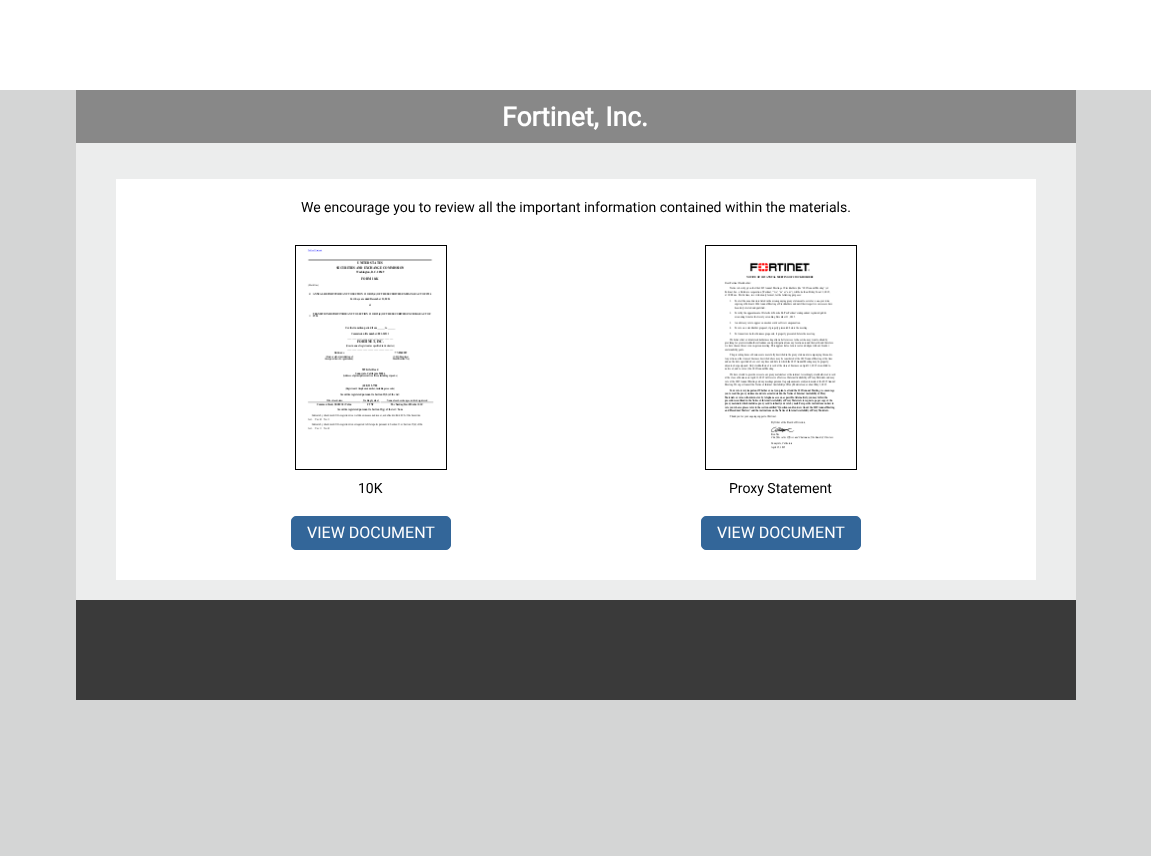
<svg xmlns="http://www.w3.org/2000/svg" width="1151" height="856">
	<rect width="100%" height="100%" fill="#D4D5D5" />
	<rect x="0" y="0" width="1151" height="90" fill="#FFFFFF" />
	<rect x="76" y="90" width="1000" height="53" fill="#888888" />
	<text x="502" y="126" font-family="Roboto" font-size="26.5" font-weight="700" fill="#FFFFFF">Fortinet, Inc.</text>
	<rect x="76" y="143" width="1000" height="457" fill="#ECEDED" />
	<rect x="116" y="179" width="920" height="401" fill="#FFFFFF" />
	<text x="301" y="212" font-family="Roboto" font-size="14" fill="#000000">We encourage you to review all the important information contained within the materials.</text>
	<rect x="295.5" y="245.5" width="151" height="224" fill="none" stroke="#000000" />
	<image x="307" y="249" width="127" height="181" href="assets/img1.png" />
	<text x="358" y="493" font-family="Roboto" font-size="14" fill="#000000">10K</text>
	<rect x="291.5" y="516.5" width="159" height="33" rx="4.5" fill="#336699" stroke="#336699" />
	<text x="307" y="538" font-family="Roboto" font-size="16" fill="#FFFFFF">VIEW DOCUMENT</text>
	<rect x="705.5" y="245.5" width="151" height="224" fill="none" stroke="#000000" />
	<image x="724" y="262" width="112" height="188" href="assets/img2.png" />
	<text x="729" y="493" font-family="Roboto" font-size="14" fill="#000000">Proxy Statement</text>
	<rect x="701.5" y="516.5" width="159" height="33" rx="4.5" fill="#336699" stroke="#336699" />
	<text x="717" y="538" font-family="Roboto" font-size="16" fill="#FFFFFF">VIEW DOCUMENT</text>
	<rect x="76" y="600" width="1000" height="100" fill="#3A3A3A" />
</svg>
